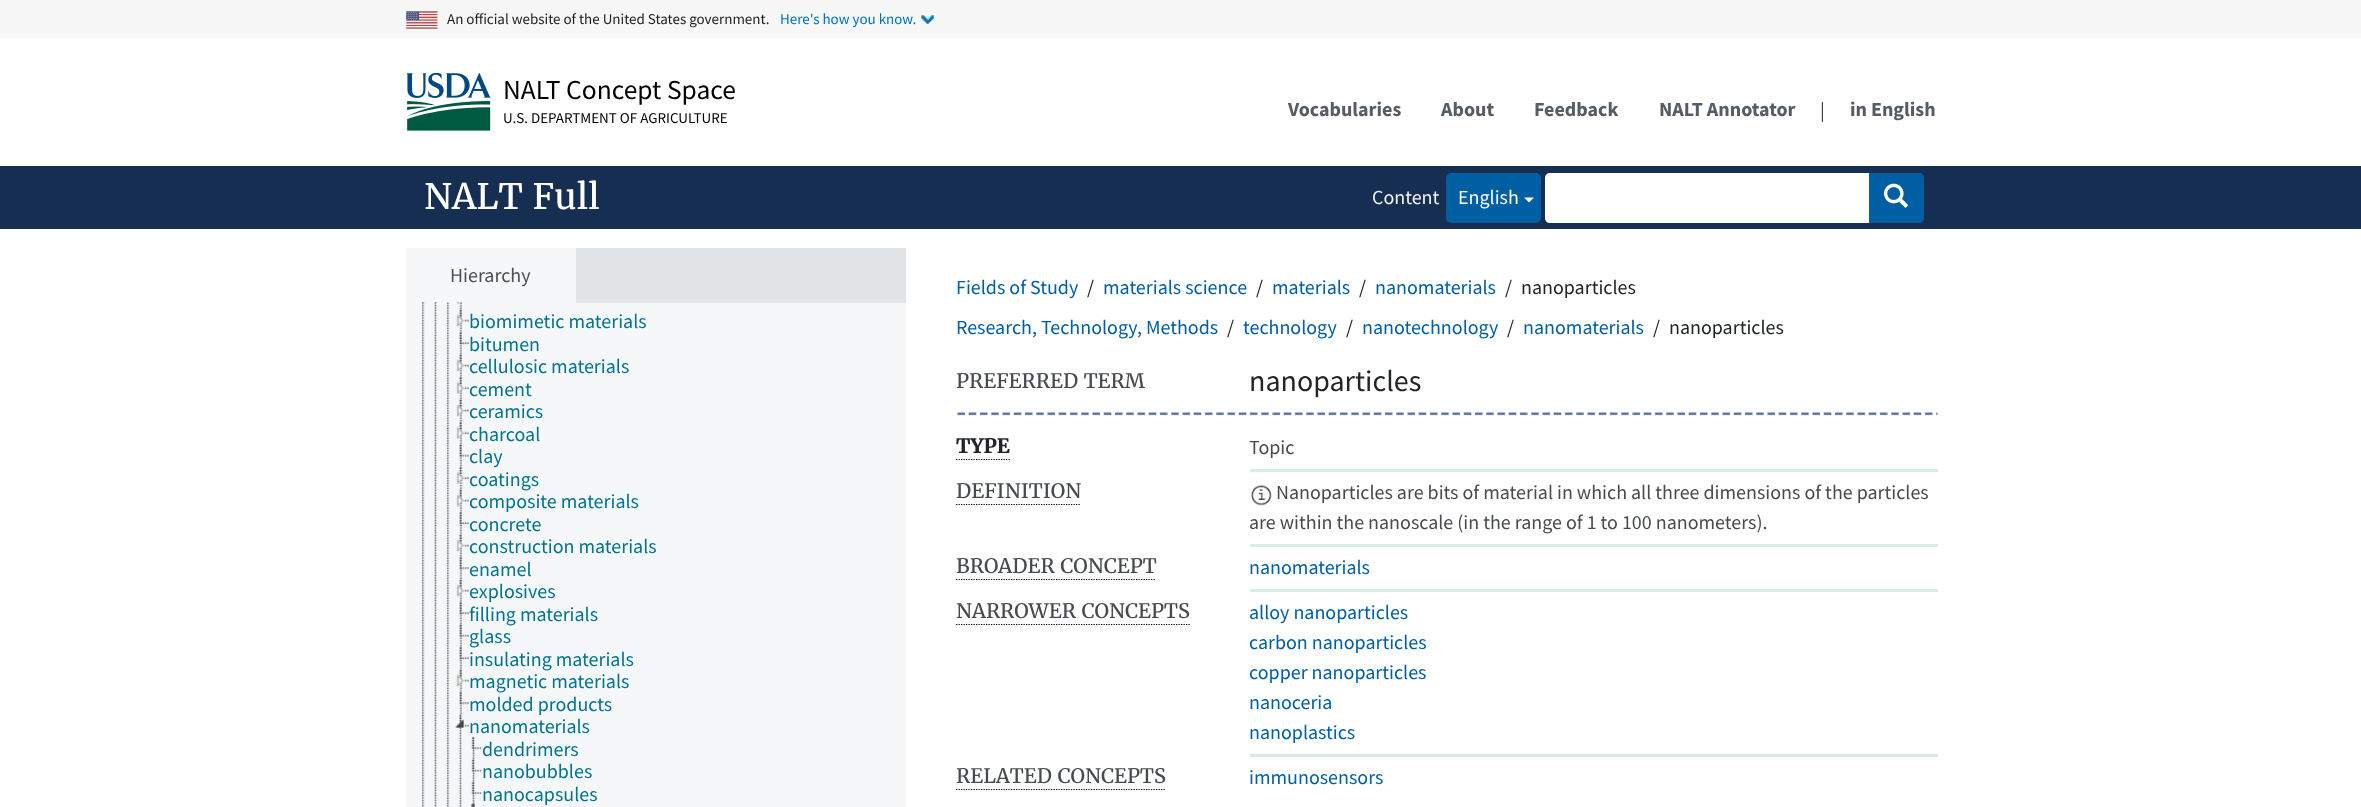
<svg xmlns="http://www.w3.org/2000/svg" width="2361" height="807">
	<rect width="100%" height="100%" fill="#FFFFFF" />
	<rect x="0" y="0" width="2361" height="38" fill="#F7F7F7" />
	<image x="406" y="11" width="32" height="18" href="assets/img1.png" />
	<text x="447" y="24" font-family="Source Sans Pro" font-size="15" fill="#212121">An official website of the United States government.</text>
	<image x="921" y="15" width="13" height="9" href="assets/img2.png" />
	<text x="780" y="24" font-family="Source Sans Pro" font-size="15" fill="#0071BC">Here's how you know.</text>
	<image x="406" y="73" width="85" height="58" href="assets/img3.png" />
	<text x="503" y="99" font-family="Source Sans Pro" font-size="27.5" fill="#000000">NALT Concept Space</text>
	<text x="503" y="123" font-family="Source Sans Pro" font-size="15" fill="#000000">U.S. DEPARTMENT OF AGRICULTURE</text>
	<g font-family="Source Sans Pro" font-size="20" font-weight="700" fill="#565C65">
		<text x="1288" y="116">Vocabularies</text>
		<text x="1441" y="116">About</text>
		<text x="1534" y="116">Feedback</text>
		<text x="1659" y="116">NALT Annotator</text>
	</g>
	<text x="1820" y="117" font-family="Source Sans Pro" font-size="20" fill="#394554">|</text>
	<text x="1850" y="116" font-family="Source Sans Pro" font-size="20" font-weight="700" fill="#565C65">in English</text>
	<rect x="0" y="166" width="2361" height="63" fill="#162E51" />
	<text x="424" y="209" font-family="Merriweather" font-size="35" fill="#FFFFFF">NALT Full</text>
	<text x="1372" y="204" font-family="Source Sans Pro" font-size="20" fill="#F3F5F6">Content</text>
	<rect x="1446" y="173" width="95" height="50" rx="5" fill="#005EA2" />
	<text x="1458" y="204" font-family="Source Sans Pro" font-size="20" fill="#FFFFFF">English</text>
	<path d="M1524 197.5H1534L1529 202.5Z" fill="#FFFFFF" />
	<path d="M1550 173H1870V223H1550C1547 223 1545 221 1545 218V178C1545 175 1547 173 1550 173Z" fill="#FFFFFF" />
	<path d="M1869 173H1919C1922 173 1924 175 1924 178V218C1924 221 1922 223 1919 223H1869Z" fill="#005EA2" />
	<image x="1883" y="183" width="25" height="25" href="assets/img4.png" />
	<rect x="576" y="248" width="330" height="55" fill="#E0E4E7" />
	<rect x="406" y="248" width="170" height="55" fill="#F6F7F8" />
	<text x="450" y="282" font-family="Source Sans Pro" font-size="20" fill="#495057">Hierarchy</text>
	<rect x="406" y="303" width="500" height="504" fill="#F6F7F8" />
	<image x="421" y="302" width="4" height="505" href="assets/img5.png" />
	<image x="434" y="302" width="3" height="505" href="assets/img6.png" />
	<image x="446" y="302" width="4" height="505" href="assets/img7.png" />
	<image x="459" y="302" width="3" height="8" href="assets/img8.png" />
	<image x="456" y="302" width="4" height="3" href="assets/img9.png" />
	<image x="459" y="309" width="3" height="23" href="assets/img10.png" />
	<image x="456" y="309" width="13" height="18" href="assets/img11.png" />
	<text x="469" y="328" font-family="Source Sans Pro" font-size="20" fill="#00748F">biomimetic materials</text>
	<image x="459" y="331" width="3" height="24" href="assets/img12.png" />
	<image x="459" y="331" width="10" height="14" href="assets/img13.png" />
	<text x="469" y="351" font-family="Source Sans Pro" font-size="20" fill="#00748F">bitumen</text>
	<image x="459" y="354" width="3" height="23" href="assets/img10.png" />
	<image x="456" y="354" width="13" height="18" href="assets/img14.png" />
	<text x="469" y="373" font-family="Source Sans Pro" font-size="20" fill="#00748F">cellulosic materials</text>
	<image x="459" y="376" width="3" height="24" href="assets/img15.png" />
	<image x="456" y="376" width="13" height="18" href="assets/img16.png" />
	<text x="469" y="396" font-family="Source Sans Pro" font-size="20" fill="#00748F">cement</text>
	<image x="459" y="399" width="3" height="23" href="assets/img10.png" />
	<image x="456" y="399" width="13" height="18" href="assets/img14.png" />
	<text x="469" y="418" font-family="Source Sans Pro" font-size="20" fill="#00748F">ceramics</text>
	<image x="459" y="421" width="3" height="24" href="assets/img15.png" />
	<image x="456" y="421" width="13" height="18" href="assets/img16.png" />
	<text x="469" y="441" font-family="Source Sans Pro" font-size="20" fill="#00748F">charcoal</text>
	<image x="459" y="444" width="3" height="23" href="assets/img17.png" />
	<image x="459" y="444" width="10" height="13" href="assets/img18.png" />
	<text x="469" y="463" font-family="Source Sans Pro" font-size="20" fill="#00748F">clay</text>
	<image x="459" y="467" width="4" height="22" href="assets/img19.png" />
	<image x="456" y="466" width="13" height="18" href="assets/img20.png" />
	<text x="469" y="486" font-family="Source Sans Pro" font-size="20" fill="#00748F">coatings</text>
	<image x="459" y="489" width="3" height="23" href="assets/img21.png" />
	<image x="456" y="489" width="13" height="18" href="assets/img22.png" />
	<text x="469" y="508" font-family="Source Sans Pro" font-size="20" fill="#00748F">composite materials</text>
	<image x="459" y="512" width="3" height="23" href="assets/img23.png" />
	<image x="459" y="511" width="10" height="14" href="assets/img24.png" />
	<text x="469" y="531" font-family="Source Sans Pro" font-size="20" fill="#00748F">concrete</text>
	<image x="459" y="534" width="3" height="23" href="assets/img25.png" />
	<image x="456" y="534" width="13" height="18" href="assets/img26.png" />
	<text x="469" y="553" font-family="Source Sans Pro" font-size="20" fill="#00748F">construction materials</text>
	<image x="459" y="556" width="3" height="24" href="assets/img15.png" />
	<image x="459" y="557" width="10" height="13" href="assets/img27.png" />
	<text x="469" y="576" font-family="Source Sans Pro" font-size="20" fill="#00748F">enamel</text>
	<image x="459" y="579" width="3" height="23" href="assets/img10.png" />
	<image x="456" y="579" width="13" height="18" href="assets/img28.png" />
	<text x="469" y="598" font-family="Source Sans Pro" font-size="20" fill="#00748F">explosives</text>
	<image x="459" y="601" width="3" height="24" href="assets/img15.png" />
	<image x="459" y="602" width="10" height="13" href="assets/img29.png" />
	<text x="469" y="621" font-family="Source Sans Pro" font-size="20" fill="#00748F">filling materials</text>
	<image x="459" y="624" width="3" height="23" href="assets/img30.png" />
	<image x="459" y="624" width="10" height="13" href="assets/img31.png" />
	<text x="469" y="643" font-family="Source Sans Pro" font-size="20" fill="#00748F">glass</text>
	<image x="459" y="647" width="3" height="23" href="assets/img32.png" />
	<image x="459" y="646" width="10" height="14" href="assets/img33.png" />
	<text x="469" y="666" font-family="Source Sans Pro" font-size="20" fill="#00748F">insulating materials</text>
	<image x="459" y="669" width="3" height="23" href="assets/img34.png" />
	<image x="456" y="669" width="13" height="18" href="assets/img35.png" />
	<text x="469" y="688" font-family="Source Sans Pro" font-size="20" fill="#00748F">magnetic materials</text>
	<image x="459" y="691" width="3" height="24" href="assets/img15.png" />
	<image x="459" y="692" width="10" height="13" href="assets/img27.png" />
	<text x="469" y="711" font-family="Source Sans Pro" font-size="20" fill="#00748F">molded products</text>
	<image x="459" y="714" width="3" height="93" href="assets/img36.png" />
	<image x="455" y="714" width="14" height="14" href="assets/img37.png" />
	<text x="469" y="733" font-family="Source Sans Pro" font-size="20" fill="#00748F">nanomaterials</text>
	<image x="472" y="736" width="3" height="24" href="assets/img38.png" />
	<image x="471" y="737" width="11" height="13" href="assets/img39.png" />
	<text x="482" y="756" font-family="Source Sans Pro" font-size="20" fill="#00748F">dendrimers</text>
	<image x="472" y="759" width="3" height="23" href="assets/img40.png" />
	<image x="471" y="759" width="11" height="13" href="assets/img41.png" />
	<text x="482" y="778" font-family="Source Sans Pro" font-size="20" fill="#00748F">nanobubbles</text>
	<image x="472" y="781" width="3" height="24" href="assets/img42.png" />
	<rect x="472" y="804" width="3" height="3" fill="#1B1B19" fill-opacity="0.51" />
	<rect x="471" y="804" width="3" height="3" fill="#1A1A17" fill-opacity="0.38" />
	<image x="471" y="782" width="11" height="13" href="assets/img39.png" />
	<text x="482" y="801" font-family="Source Sans Pro" font-size="20" fill="#00748F">nanocapsules</text>
	<text x="956" y="294" font-family="Source Sans Pro" font-size="20" fill="#005EA2">Fields of Study</text>
	<text x="1087" y="294" font-family="Source Sans Pro" font-size="20" fill="#212529">/</text>
	<text x="1103" y="294" font-family="Source Sans Pro" font-size="20" fill="#005EA2">materials science</text>
	<text x="1256" y="294" font-family="Source Sans Pro" font-size="20" fill="#212529">/</text>
	<text x="1272" y="294" font-family="Source Sans Pro" font-size="20" fill="#005EA2">materials</text>
	<text x="1359" y="294" font-family="Source Sans Pro" font-size="20" fill="#212529">/</text>
	<text x="1375" y="294" font-family="Source Sans Pro" font-size="20" fill="#005EA2">nanomaterials</text>
	<g font-family="Source Sans Pro" font-size="20" fill="#212529">
		<text x="1505" y="294">/</text>
		<text x="1521" y="294">nanoparticles</text>
	</g>
	<text x="956" y="334" font-family="Source Sans Pro" font-size="20" fill="#005EA2">Research, Technology, Methods</text>
	<text x="1227" y="334" font-family="Source Sans Pro" font-size="20" fill="#212529">/</text>
	<text x="1243" y="334" font-family="Source Sans Pro" font-size="20" fill="#005EA2">technology</text>
	<text x="1346" y="334" font-family="Source Sans Pro" font-size="20" fill="#212529">/</text>
	<text x="1362" y="334" font-family="Source Sans Pro" font-size="20" fill="#005EA2">nanotechnology</text>
	<text x="1507" y="334" font-family="Source Sans Pro" font-size="20" fill="#212529">/</text>
	<text x="1523" y="334" font-family="Source Sans Pro" font-size="20" fill="#005EA2">nanomaterials</text>
	<g font-family="Source Sans Pro" font-size="20" fill="#212529">
		<text x="1653" y="334">/</text>
		<text x="1669" y="334">nanoparticles</text>
	</g>
	<text x="956" y="388" font-family="Merriweather" font-size="20" fill="#474B4F">PREFERRED TERM</text>
	<text x="1249" y="391" font-family="Source Sans Pro" font-size="30" fill="#212529">nanoparticles</text>
	<image x="957" y="412" width="981" height="4" href="assets/img43.png" />
	<text x="956" y="453" font-family="Merriweather" font-size="20" font-weight="700" fill="#212529">TYPE</text>
	<path d="M956 459.5H1010" fill="none" stroke="#000000" stroke-width="1.2" stroke-dasharray="1.25 1.25" />
	<rect x="1250" y="469" width="688" height="3" fill="#D4EDEB" />
	<text x="1249" y="454" font-family="Source Sans Pro" font-size="20" fill="#474B4F">Topic</text>
	<text x="956" y="498" font-family="Merriweather" font-size="20" fill="#474B4F">DEFINITION</text>
	<path d="M956 504.5H1081" fill="none" stroke="#000000" stroke-width="1.2" stroke-dasharray="1.25 1.25" />
	<rect x="1250" y="544" width="688" height="3" fill="#D4EDEB" />
	<image x="1251" y="485" width="21" height="21" href="assets/img44.png" />
	<g font-family="Source Sans Pro" font-size="20" fill="#474B4F">
		<text x="1276" y="499">Nanoparticles are bits of material in which all three dimensions of the particles</text>
		<text x="1249" y="529">are within the nanoscale (in the range of 1 to 100 nanometers).</text>
	</g>
	<text x="956" y="573" font-family="Merriweather" font-size="20" fill="#474B4F">BROADER CONCEPT</text>
	<path d="M956 579.5H1156" fill="none" stroke="#000000" stroke-width="1.2" stroke-dasharray="1.25 1.25" />
	<rect x="1250" y="589" width="688" height="3" fill="#D4EDEB" />
	<text x="1249" y="574" font-family="Source Sans Pro" font-size="20" fill="#005EA2">nanomaterials</text>
	<text x="956" y="618" font-family="Merriweather" font-size="20" fill="#474B4F">NARROWER CONCEPTS</text>
	<path d="M956 624.5H1190" fill="none" stroke="#000000" stroke-width="1.2" stroke-dasharray="1.25 1.25" />
	<rect x="1250" y="754" width="688" height="3" fill="#D4EDEB" />
	<g font-family="Source Sans Pro" font-size="20" fill="#005EA2">
		<text x="1249" y="619">alloy nanoparticles</text>
		<text x="1249" y="649">carbon nanoparticles</text>
		<text x="1249" y="679">copper nanoparticles</text>
		<text x="1249" y="709">nanoceria</text>
		<text x="1249" y="739">nanoplastics</text>
	</g>
	<text x="956" y="783" font-family="Merriweather" font-size="20" fill="#474B4F">RELATED CONCEPTS</text>
	<path d="M956 789.5H1165" fill="none" stroke="#000000" stroke-width="1.2" stroke-dasharray="1.25 1.25" />
	<text x="1249" y="784" font-family="Source Sans Pro" font-size="20" fill="#005EA2">immunosensors</text>
</svg>
